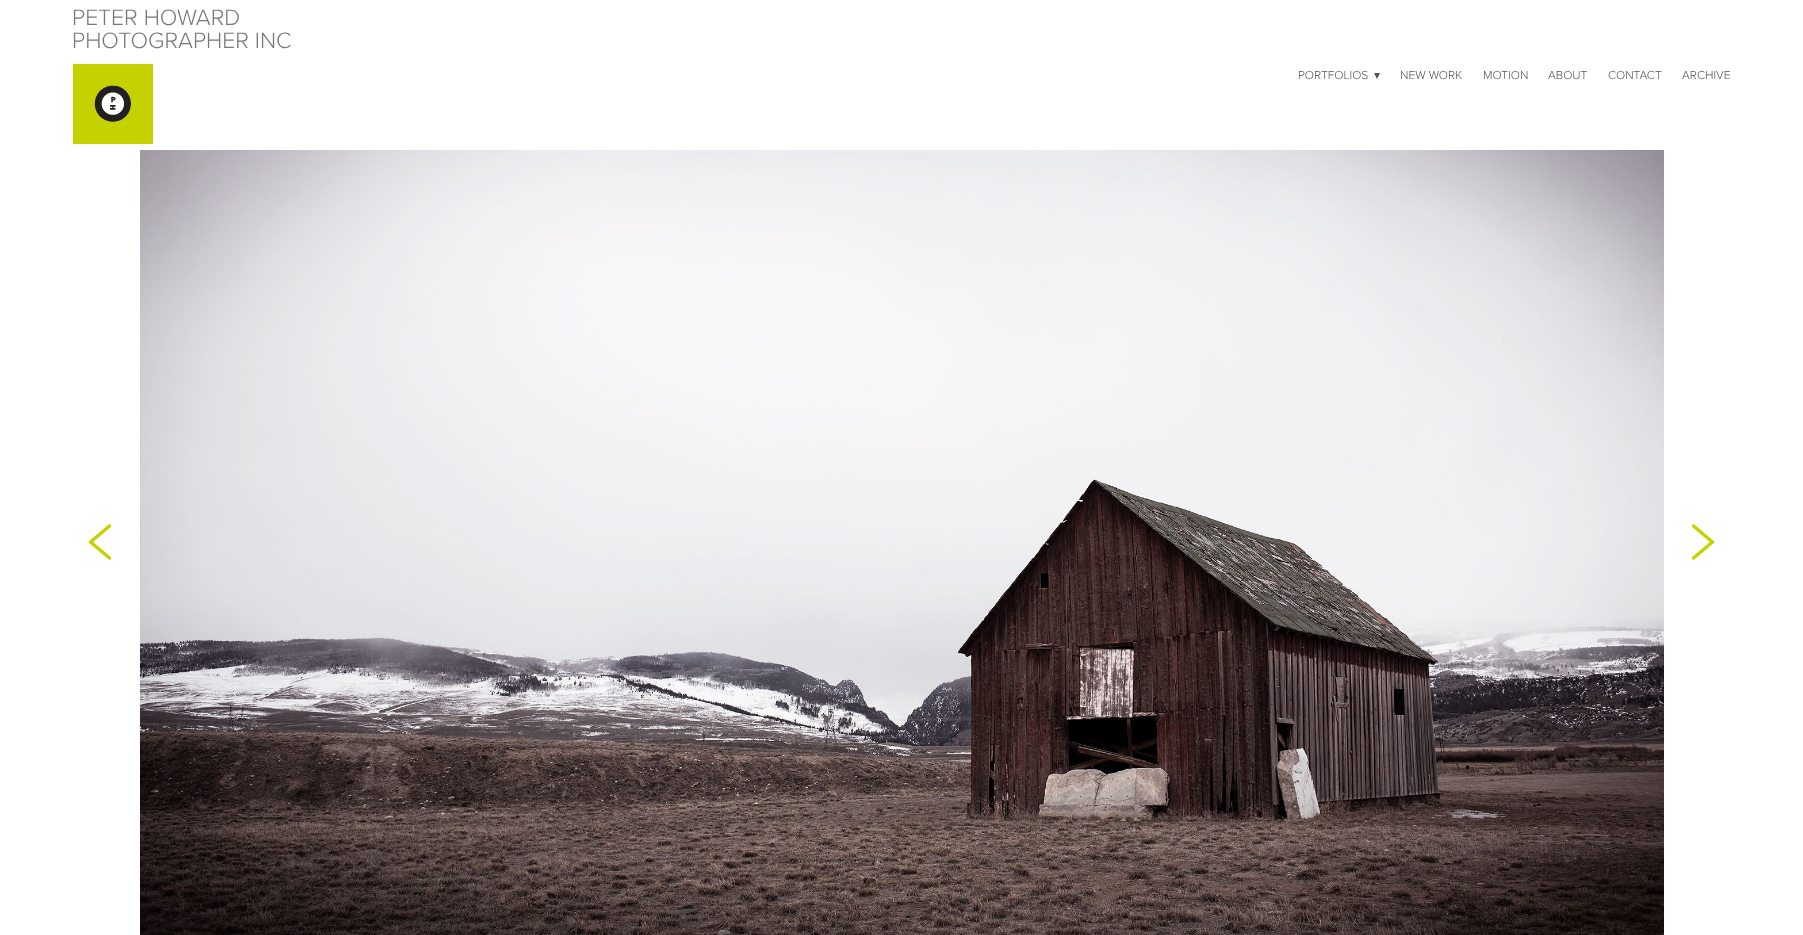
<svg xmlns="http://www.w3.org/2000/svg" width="1803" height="935">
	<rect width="100%" height="100%" fill="#FFFFFF" />
	<g font-family="Proxima Nova" font-size="23" font-weight="300" fill="#787878">
		<text x="72" y="25">PETER HOWARD</text>
		<text x="72" y="48">PHOTOGRAPHER INC</text>
	</g>
	<image x="73" y="64" width="80" height="80" href="assets/img1.png" />
	<text x="1298" y="79" font-family="Proxima Nova" font-size="12" font-weight="300" fill="#545454">PORTFOLIOS</text>
	<text x="1374" y="79" font-family="DejaVu Sans" font-size="12" fill="#545454">▾</text>
	<g font-family="Proxima Nova" font-size="12" font-weight="300" fill="#545454">
		<text x="1400" y="79">NEW WORK</text>
		<text x="1483" y="79">MOTION</text>
		<text x="1548" y="79">ABOUT</text>
		<text x="1608" y="79">CONTACT</text>
		<text x="1682" y="79">ARCHIVE</text>
	</g>
	<image x="140" y="150" width="1524" height="785" href="assets/img2.png" />
	<path d="M109.5 526L90.5 542L109.5 558" fill="none" stroke="#C4D300" stroke-width="3.5" stroke-linecap="round" stroke-linejoin="round" />
	<path d="M1693.5 526L1712.5 542L1693.5 558" fill="none" stroke="#C4D300" stroke-width="3.5" stroke-linecap="round" stroke-linejoin="round" />
</svg>
